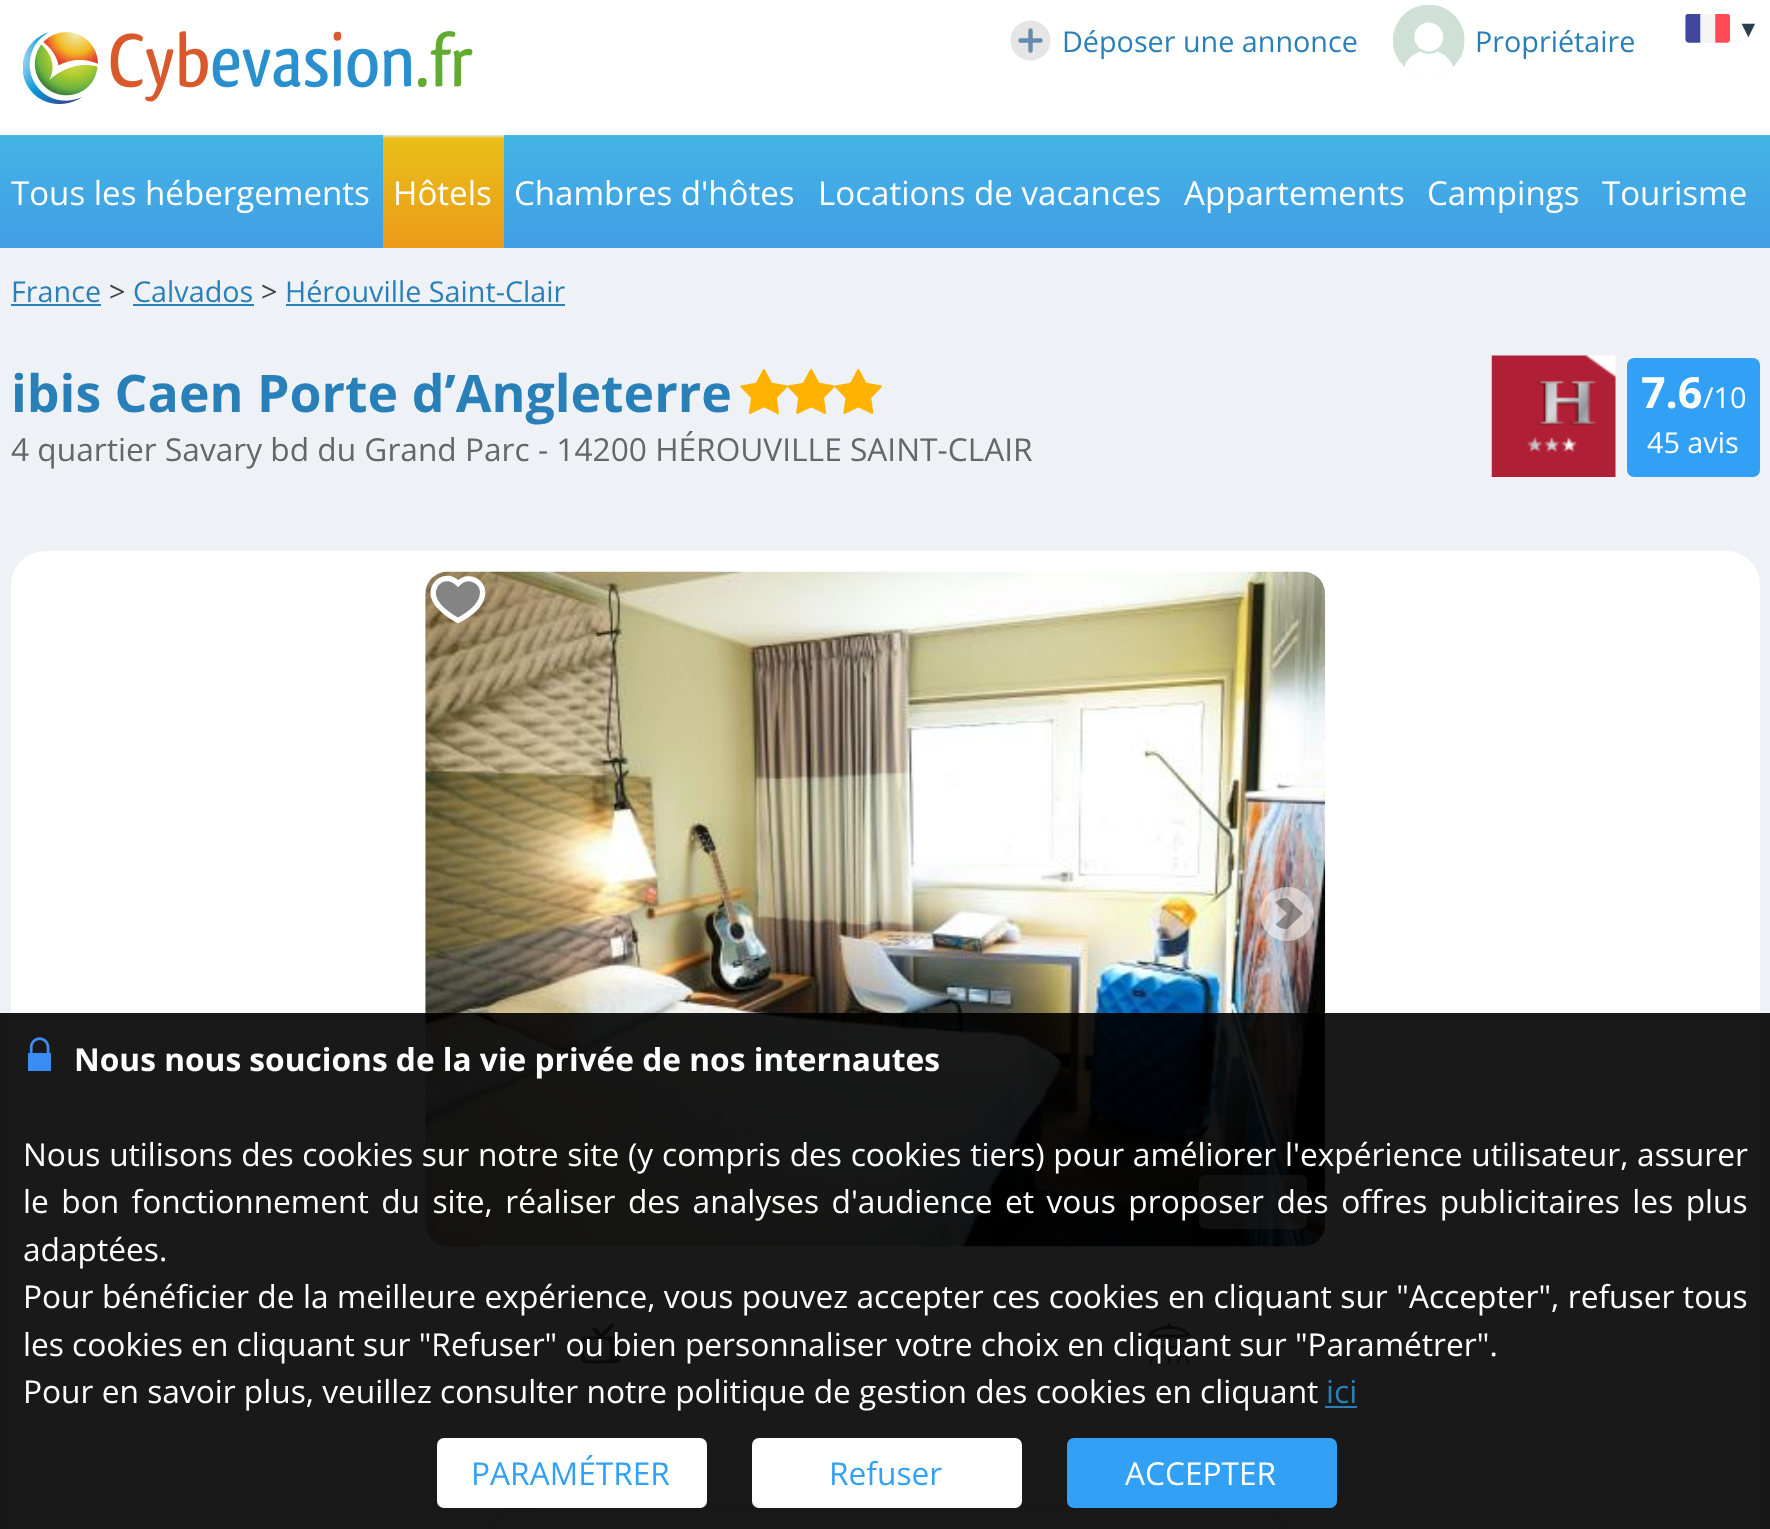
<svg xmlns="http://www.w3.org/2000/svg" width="1770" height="1529">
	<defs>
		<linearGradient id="g1" gradientUnits="userSpaceOnUse" x1="885" y1="135" x2="885" y2="248"><stop offset="0" stop-color="#43B4E5" /><stop offset="1" stop-color="#419EE5" /></linearGradient>
		<linearGradient id="g2" gradientUnits="userSpaceOnUse" x1="443" y1="135" x2="443" y2="248"><stop offset="0" stop-color="#E8E8E8" /><stop offset="0.03" stop-color="#E9BF17" /><stop offset="1" stop-color="#EB9B1B" /></linearGradient>
		<clipPath id="clip1"><path d="M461 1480H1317V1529H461ZM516 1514H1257C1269.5 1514 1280 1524.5 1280 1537V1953C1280 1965.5 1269.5 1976 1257 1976H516C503.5 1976 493 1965.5 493 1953V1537C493 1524.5 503.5 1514 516 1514Z" clip-rule="evenodd" /></clipPath>
	</defs>
	<rect width="100%" height="100%" fill="#EEF2F6" />
	<rect x="0" y="0" width="1770" height="135" fill="#FFFFFF" />
	<image x="23" y="31" width="450" height="73" href="assets/img1.png" />
	<circle cx="1030.5" cy="40.5" r="20" fill="#E5E5E5" />
	<path d="M1040.5 40.5H1020.5M1030.5 30.5V50.5" fill="none" stroke="#678AAE" stroke-width="4.4" stroke-linecap="round" />
	<text x="1062" y="52" font-family="Open Sans" font-size="28.75" fill="#2980B9">Déposer une annonce</text>
	<image x="1393" y="5" width="72" height="72" href="assets/img2.png" />
	<text x="1475" y="52" font-family="Open Sans" font-size="28.75" fill="#2980B9">Propriétaire</text>
	<image x="1685" y="14" width="45" height="29" href="assets/img3.png" />
	<text x="1737" y="37" font-family="Liberation Sans" font-size="23" fill="#2C3E50">▼</text>
	<rect x="0" y="135" width="1770" height="113" fill="url(#g1)" />
	<text x="11" y="205" font-family="Open Sans" font-size="33.1" fill="#FFFFFF">Tous les hébergements</text>
	<rect x="383" y="135" width="121" height="113" fill="url(#g2)" />
	<g font-family="Open Sans" font-size="33.1" fill="#FFFFFF">
		<text x="393" y="205">Hôtels</text>
		<text x="514" y="205">Chambres d'hôtes</text>
		<text x="818" y="205">Locations de vacances</text>
		<text x="1184" y="205">Appartements</text>
		<text x="1427" y="205">Campings</text>
		<text x="1602" y="205">Tourisme</text>
	</g>
	<text x="11" y="302" font-family="Open Sans" font-size="28.75" fill="#2980B9">France</text>
	<rect x="11" y="304" width="90" height="2" fill="#2980B9" />
	<text x="109" y="302" font-family="Open Sans" font-size="28.75" fill="#404040">&gt;</text>
	<text x="133" y="302" font-family="Open Sans" font-size="28.75" fill="#2980B9">Calvados</text>
	<rect x="133" y="304" width="121" height="2" fill="#2980B9" />
	<text x="261" y="302" font-family="Open Sans" font-size="28.75" fill="#404040">&gt;</text>
	<text x="285" y="302" font-family="Open Sans" font-size="28.75" fill="#2980B9">Hérouville Saint-Clair</text>
	<rect x="286" y="304" width="279" height="2" fill="#2980B9" />
	<text x="11" y="412" font-family="Open Sans" font-size="51.8" font-weight="700" fill="#2980B9">ibis Caen Porte d’Angleterre</text>
	<image x="740" y="369" width="142" height="45" href="assets/img4.png" />
	<image x="1491" y="355" width="125" height="122" href="assets/img5.png" />
	<rect x="1628" y="359" width="131" height="117" rx="6" fill="#32A0F5" stroke="#32A0F5" stroke-width="2" />
	<text x="1641" y="408" font-family="Open Sans" font-size="43" font-weight="700" fill="#FFFFFF">7.6</text>
	<g font-family="Open Sans" font-size="28.75" fill="#FFFFFF">
		<text x="1703" y="408">/10</text>
		<text x="1647" y="453">45 avis</text>
	</g>
	<text x="11" y="461" font-family="Open Sans" font-size="31.68" fill="#666666">4 quartier Savary bd du Grand Parc - 14200 HÉROUVILLE SAINT-CLAIR</text>
	<rect x="12" y="552" width="1747" height="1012" rx="33" fill="#FFFFFF" stroke="#FFFFFF" stroke-width="2" />
	<image x="425" y="571" width="901" height="676" href="assets/img6.png" />
	<path d="M447 579C452 579 455 581 458 583C469 573 486 582 482 597C479 608 467 615 458 620C447 615 426 600 436 585C438 581 443 579 447 579Z" fill="#848484" />
	<path d="M447.5 578.5C451.5 578.5 455 580.5 458 583.5C469.5 572.5 486 582.5 482 597C479 608 467.5 615.5 458 620.5C447 614.5 426 600 435.5 585C438 581 442.5 578.5 447.5 578.5Z" fill="none" stroke="#FFFFFF" stroke-width="5.3" />
	<circle cx="1287" cy="914" r="27" fill="#FFFFFF" fill-opacity="0.5" />
	<path d="M1286.5 898H1287L1303 913.5L1287 929C1282.5 929 1278.5 927.5 1275.5 924.5L1287 913.5L1275.5 902.5C1278.5 899.5 1282.5 898 1286.5 898Z" fill="#404040" fill-opacity="0.5" />
	<rect x="1199" y="1175" width="108" height="54" rx="7" fill="#FFFFFF" fill-opacity="0.6" />
	<image x="581" y="1323" width="40" height="41" href="assets/img7.png" />
	<image x="1148" y="1323" width="43" height="41" href="assets/img8.png" />
	<g clip-path="url(#clip1)">
		<rect x="495" y="1514" width="788" height="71" rx="23" fill="#CCCCCC" filter="blur(11px)" />
	</g>
	<rect x="0" y="1013" width="1770" height="516" fill="#000000" fill-opacity="0.9" />
	<image x="28" y="1037" width="23" height="34" href="assets/img9.png" />
	<text x="74" y="1071" font-family="Open Sans" font-size="31.68" font-weight="700" fill="#FFFFFF">Nous nous soucions de la vie privée de nos internautes</text>
	<g font-family="Open Sans" font-size="31.68" fill="#FFFFFF">
		<text x="23" y="1166" word-spacing="0.5">Nous utilisons des cookies sur notre site (y compris des cookies tiers) pour améliorer l'expérience utilisateur, assurer</text>
		<text x="23" y="1213" word-spacing="4.25">le bon fonctionnement du site, réaliser des analyses d'audience et vous proposer des offres publicitaires les plus</text>
		<text x="23" y="1261">adaptées.</text>
		<text x="23" y="1308" word-spacing="0.25">Pour bénéficier de la meilleure expérience, vous pouvez accepter ces cookies en cliquant sur "Accepter", refuser tous</text>
		<text x="23" y="1356">les cookies en cliquant sur "Refuser" ou bien personnaliser votre choix en cliquant sur "Paramétrer".</text>
		<text x="23" y="1403">Pour en savoir plus, veuillez consulter notre politique de gestion des cookies en cliquant</text>
	</g>
	<text x="1326" y="1403" font-family="Open Sans" font-size="31.68" fill="#2980B9">ici</text>
	<rect x="1325" y="1406" width="32" height="2" fill="#2980B9" />
	<rect x="437" y="1438" width="270" height="70" rx="7" fill="#FFFFFF" />
	<text x="471" y="1485" font-family="Open Sans" font-size="31.68" fill="#32A0F5">PARAMÉTRER</text>
	<rect x="752" y="1438" width="270" height="70" rx="7" fill="#FFFFFF" />
	<text x="829" y="1485" font-family="Open Sans" font-size="31.68" fill="#32A0F5">Refuser</text>
	<rect x="1067" y="1438" width="270" height="70" rx="7" fill="#32A0F5" />
	<text x="1125" y="1485" font-family="Open Sans" font-size="31.68" fill="#FFFFFF">ACCEPTER</text>
</svg>
